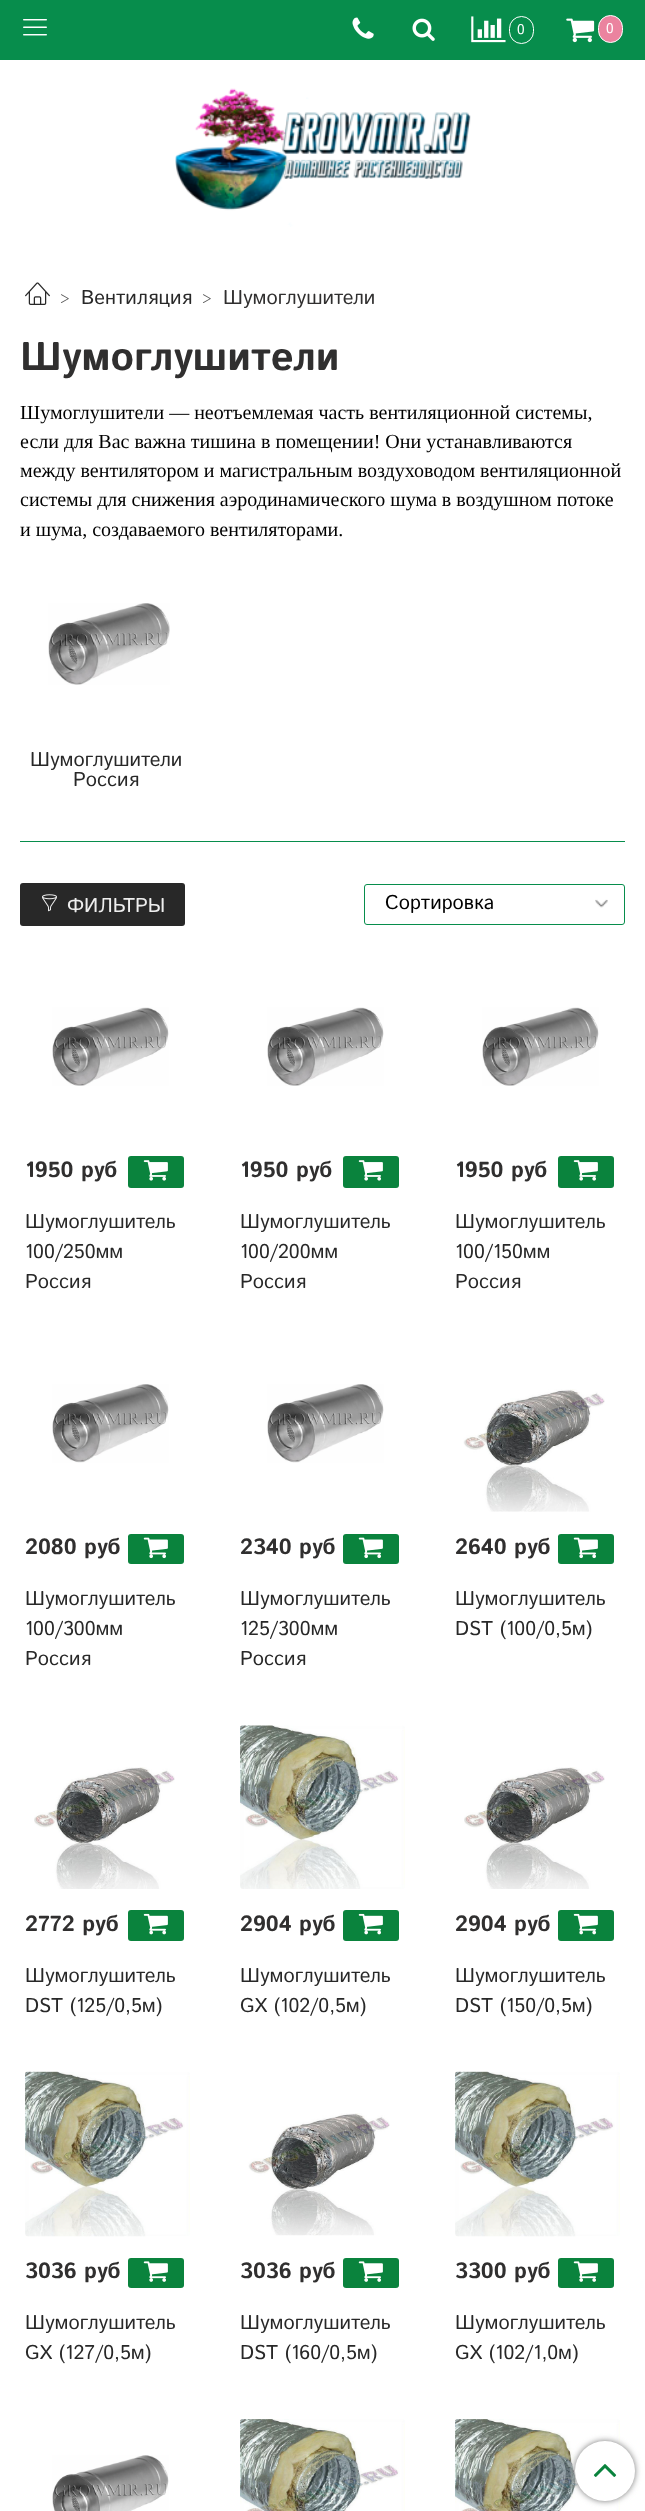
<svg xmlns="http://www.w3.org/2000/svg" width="645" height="2511">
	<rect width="100%" height="100%" fill="#FFFFFF" />
	<rect x="0" y="0" width="645" height="60" fill="#078D4C" />
	<image x="23" y="19" width="24" height="17" href="assets/img1.png" />
	<image x="352" y="17" width="22" height="22" href="assets/img2.png" />
	<image x="412" y="18" width="23" height="23" href="assets/img3.png" />
	<image x="471" y="16" width="35" height="27" href="assets/img4.png" />
	<rect x="509.5" y="16.5" width="24" height="27" rx="12" fill="none" stroke="#FFFFFF" />
	<text x="517" y="34" font-family="Istok Web" font-size="14" fill="#FFFFFF">0</text>
	<image x="566" y="18" width="29" height="25" href="assets/img5.png" />
	<rect x="598.5" y="15.5" width="24" height="27" rx="12" fill="#EB839F" stroke="#FFFFFF" />
	<text x="606" y="33" font-family="Istok Web" font-size="14" fill="#FFFFFF">0</text>
	<image x="175" y="88" width="296" height="139" href="assets/img6.png" />
	<image x="25" y="282" width="25" height="23" href="assets/img7.png" />
	<text x="60" y="304" font-family="Istok Web" font-size="15" fill="#595959">&gt;</text>
	<text x="81" y="304" font-family="Istok Web" font-size="20" fill="#282828">Вентиляция</text>
	<text x="202" y="304" font-family="Istok Web" font-size="15" fill="#595959">&gt;</text>
	<text x="223" y="304" font-family="Istok Web" font-size="20" fill="#302F2F">Шумоглушители</text>
	<text x="20" y="370" font-family="Istok Web" font-size="40" font-weight="700" fill="#302F2F">Шумоглушители</text>
	<g font-family="Liberation Serif" font-size="20" fill="#000000">
		<text x="20" y="419">Шумоглушители — неотъемлемая часть вентиляционной системы,</text>
		<text x="20" y="448">если для Вас важна тишина в помещении! Они устанавливаются</text>
		<text x="20" y="477">между вентилятором и магистральным воздуховодом вентиляционной</text>
		<text x="20" y="506">системы для снижения аэродинамического шума в воздушном потоке</text>
		<text x="20" y="536">и шума, создаваемого вентиляторами.</text>
	</g>
	<rect x="20" y="841" width="605" height="1" fill="#078D4C" />
	<image x="48" y="603" width="122" height="82" href="assets/img8.png" />
	<g font-family="Istok Web" font-size="20" fill="#282828">
		<text x="30" y="766">Шумоглушители</text>
		<text x="73" y="786">Россия</text>
	</g>
	<rect x="20" y="883" width="165" height="43" rx="3" fill="#282828" />
	<image x="42" y="894" width="15" height="18" href="assets/img9.png" />
	<text x="67" y="912" font-family="Istok Web" font-size="20" fill="#EEEEEE">ФИЛЬТРЫ</text>
	<image x="595" y="899" width="13" height="9" href="assets/img10.png" />
	<rect x="364.5" y="884.5" width="260" height="40" rx="2.5" fill="none" stroke="#078D4C" />
	<text x="385" y="909" font-family="Istok Web" font-size="20" fill="#000000">Сортировка</text>
	<image x="52" y="1007" width="117" height="79" href="assets/img11.png" />
	<text x="25" y="1177" font-family="Istok Web" font-size="22" font-weight="700" fill="#302F2F">1950 руб</text>
	<rect x="128" y="1156" width="56" height="32" rx="3" fill="#0A833D" />
	<image x="143" y="1160" width="25" height="21" href="assets/img12.png" />
	<g font-family="Istok Web" font-size="20" fill="#282828">
		<text x="25" y="1228">Шумоглушитель</text>
		<text x="25" y="1258">100/250мм</text>
		<text x="25" y="1288">Россия</text>
	</g>
	<image x="267" y="1007" width="117" height="79" href="assets/img11.png" />
	<text x="240" y="1177" font-family="Istok Web" font-size="22" font-weight="700" fill="#302F2F">1950 руб</text>
	<rect x="343" y="1156" width="56" height="32" rx="3" fill="#0A833D" />
	<image x="358" y="1160" width="25" height="21" href="assets/img12.png" />
	<g font-family="Istok Web" font-size="20" fill="#282828">
		<text x="240" y="1228">Шумоглушитель</text>
		<text x="240" y="1258">100/200мм</text>
		<text x="240" y="1288">Россия</text>
	</g>
	<image x="482" y="1007" width="117" height="79" href="assets/img13.png" />
	<text x="455" y="1177" font-family="Istok Web" font-size="22" font-weight="700" fill="#302F2F">1950 руб</text>
	<rect x="558" y="1156" width="56" height="32" rx="3" fill="#0A833D" />
	<image x="573" y="1160" width="25" height="21" href="assets/img12.png" />
	<g font-family="Istok Web" font-size="20" fill="#282828">
		<text x="455" y="1228">Шумоглушитель</text>
		<text x="455" y="1258">100/150мм</text>
		<text x="455" y="1288">Россия</text>
	</g>
	<image x="52" y="1384" width="117" height="79" href="assets/img14.png" />
	<text x="25" y="1554" font-family="Istok Web" font-size="22" font-weight="700" fill="#302F2F">2080 руб</text>
	<rect x="128" y="1534" width="56" height="30" rx="3" fill="#0A833D" />
	<image x="143" y="1537" width="25" height="22" href="assets/img15.png" />
	<g font-family="Istok Web" font-size="20" fill="#282828">
		<text x="25" y="1605">Шумоглушитель</text>
		<text x="25" y="1635">100/300мм</text>
		<text x="25" y="1665">Россия</text>
	</g>
	<image x="267" y="1384" width="117" height="79" href="assets/img14.png" />
	<text x="240" y="1554" font-family="Istok Web" font-size="22" font-weight="700" fill="#302F2F">2340 руб</text>
	<rect x="343" y="1534" width="56" height="30" rx="3" fill="#0A833D" />
	<image x="358" y="1537" width="25" height="22" href="assets/img15.png" />
	<g font-family="Istok Web" font-size="20" fill="#282828">
		<text x="240" y="1605">Шумоглушитель</text>
		<text x="240" y="1635">125/300мм</text>
		<text x="240" y="1665">Россия</text>
	</g>
	<image x="463" y="1389" width="142" height="123" href="assets/img16.png" />
	<text x="455" y="1554" font-family="Istok Web" font-size="22" font-weight="700" fill="#302F2F">2640 руб</text>
	<rect x="558" y="1534" width="56" height="30" rx="3" fill="#0A833D" />
	<image x="573" y="1537" width="25" height="22" href="assets/img15.png" />
	<g font-family="Istok Web" font-size="20" fill="#282828">
		<text x="455" y="1605">Шумоглушитель</text>
		<text x="455" y="1635">DST (100/0,5м)</text>
	</g>
	<image x="34" y="1767" width="141" height="122" href="assets/img17.png" />
	<text x="25" y="1931" font-family="Istok Web" font-size="22" font-weight="700" fill="#302F2F">2772 руб</text>
	<rect x="128" y="1910" width="56" height="31" rx="3" fill="#0A833D" />
	<image x="143" y="1913" width="25" height="22" href="assets/img18.png" />
	<g font-family="Istok Web" font-size="20" fill="#282828">
		<text x="25" y="1982">Шумоглушитель</text>
		<text x="25" y="2012">DST (125/0,5м)</text>
	</g>
	<image x="240" y="1725" width="165" height="164" href="assets/img19.png" />
	<text x="240" y="1931" font-family="Istok Web" font-size="22" font-weight="700" fill="#302F2F">2904 руб</text>
	<rect x="343" y="1910" width="56" height="31" rx="3" fill="#0A833D" />
	<image x="358" y="1913" width="25" height="22" href="assets/img18.png" />
	<g font-family="Istok Web" font-size="20" fill="#282828">
		<text x="240" y="1982">Шумоглушитель</text>
		<text x="240" y="2012">GX (102/0,5м)</text>
	</g>
	<image x="464" y="1767" width="141" height="122" href="assets/img20.png" />
	<text x="455" y="1931" font-family="Istok Web" font-size="22" font-weight="700" fill="#302F2F">2904 руб</text>
	<rect x="558" y="1910" width="56" height="31" rx="3" fill="#0A833D" />
	<image x="573" y="1913" width="25" height="22" href="assets/img18.png" />
	<g font-family="Istok Web" font-size="20" fill="#282828">
		<text x="455" y="1982">Шумоглушитель</text>
		<text x="455" y="2012">DST (150/0,5м)</text>
	</g>
	<image x="25" y="2071" width="165" height="166" href="assets/img21.png" />
	<text x="25" y="2278" font-family="Istok Web" font-size="22" font-weight="700" fill="#302F2F">3036 руб</text>
	<rect x="128" y="2258" width="56" height="30" rx="3" fill="#0A833D" />
	<image x="143" y="2261" width="25" height="21" href="assets/img22.png" />
	<g font-family="Istok Web" font-size="20" fill="#282828">
		<text x="25" y="2329">Шумоглушитель</text>
		<text x="25" y="2359">GX (127/0,5м)</text>
	</g>
	<image x="248" y="2113" width="142" height="123" href="assets/img23.png" />
	<text x="240" y="2278" font-family="Istok Web" font-size="22" font-weight="700" fill="#302F2F">3036 руб</text>
	<rect x="343" y="2258" width="56" height="30" rx="3" fill="#0A833D" />
	<image x="358" y="2261" width="25" height="21" href="assets/img22.png" />
	<g font-family="Istok Web" font-size="20" fill="#282828">
		<text x="240" y="2329">Шумоглушитель</text>
		<text x="240" y="2359">DST (160/0,5м)</text>
	</g>
	<image x="455" y="2071" width="165" height="166" href="assets/img24.png" />
	<text x="455" y="2278" font-family="Istok Web" font-size="22" font-weight="700" fill="#302F2F">3300 руб</text>
	<rect x="558" y="2258" width="56" height="30" rx="3" fill="#0A833D" />
	<image x="573" y="2261" width="25" height="21" href="assets/img22.png" />
	<g font-family="Istok Web" font-size="20" fill="#282828">
		<text x="455" y="2329">Шумоглушитель</text>
		<text x="455" y="2359">GX (102/1,0м)</text>
	</g>
	<image x="52" y="2455" width="117" height="56" href="assets/img25.png" />
	<image x="240" y="2419" width="165" height="92" href="assets/img26.png" />
	<image x="455" y="2419" width="165" height="92" href="assets/img27.png" />
	<rect x="575" y="2441" width="60" height="60" rx="30" fill="#777777" filter="blur(3px)" />
	<circle cx="605" cy="2471" r="30" fill="#FFFFFF" />
	<image x="593" y="2464" width="24" height="13" href="assets/img28.png" />
</svg>
